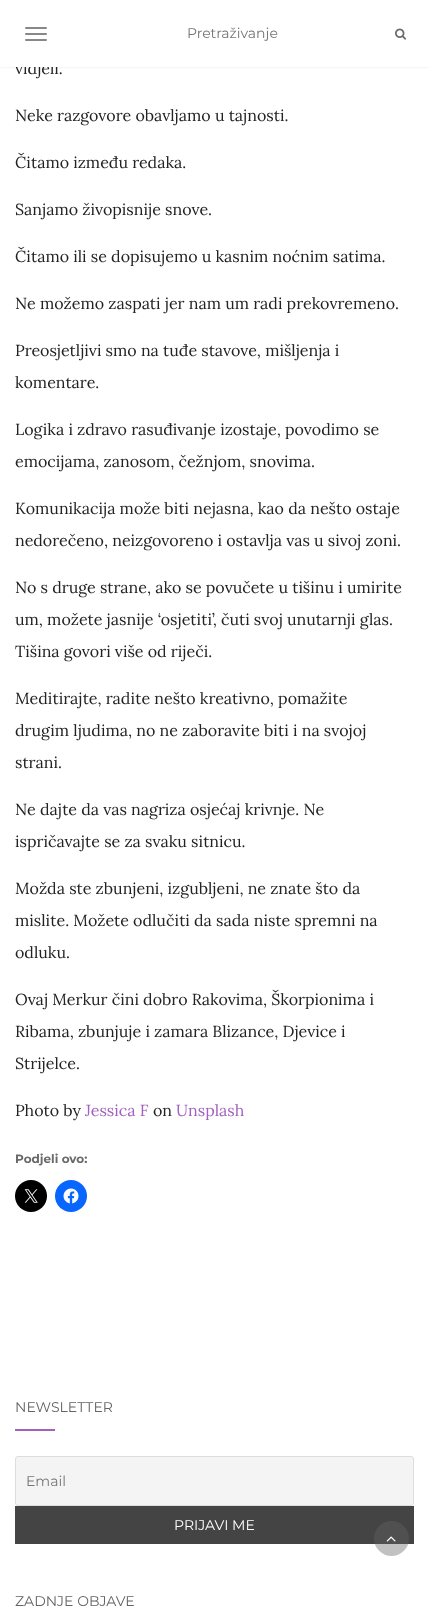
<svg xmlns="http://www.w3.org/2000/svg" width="429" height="1621">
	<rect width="100%" height="100%" fill="#FFFFFF" />
	<rect x="0" y="0" width="429" height="67" fill="#E3E3E3" filter="blur(1px)" />
	<text x="15" y="74" font-family="Lora" font-size="16" fill="#222222">vidjeli.</text>
	<rect x="0" y="0" width="429" height="67" fill="#FFFFFF" />
	<rect x="25" y="27" width="22" height="2" rx="1" fill="#888888" />
	<rect x="25" y="33" width="22" height="2" rx="1" fill="#888888" />
	<rect x="25" y="39" width="22" height="2" rx="1" fill="#888888" />
	<text x="187" y="38" font-family="Montserrat" font-size="14" fill="#757575">Pretraživanje</text>
	<image x="395" y="28" width="12" height="12" href="assets/img1.png" />
	<g font-family="Lora" font-size="16" fill="#222222">
		<text x="15" y="121">Neke razgovore obavljamo u tajnosti.</text>
		<text x="15" y="168">Čitamo između redaka.</text>
		<text x="15" y="215">Sanjamo živopisnije snove.</text>
		<text x="15" y="262">Čitamo ili se dopisujemo u kasnim noćnim satima.</text>
		<text x="15" y="309">Ne možemo zaspati jer nam um radi prekovremeno.</text>
		<text x="15" y="356">Preosjetljivi smo na tuđe stavove, mišljenja i</text>
		<text x="15" y="388">komentare.</text>
		<text x="15" y="435">Logika i zdravo rasuđivanje izostaje, povodimo se</text>
		<text x="15" y="467">emocijama, zanosom, čežnjom, snovima.</text>
		<text x="15" y="514">Komunikacija može biti nejasna, kao da nešto ostaje</text>
		<text x="15" y="546">nedorečeno, neizgovoreno i ostavlja vas u sivoj zoni.</text>
		<text x="15" y="593">No s druge strane, ako se povučete u tišinu i umirite</text>
		<text x="15" y="625">um, možete jasnije ‘osjetiti’, čuti svoj unutarnji glas.</text>
		<text x="15" y="657">Tišina govori više od riječi.</text>
		<text x="15" y="704">Meditirajte, radite nešto kreativno, pomažite</text>
		<text x="15" y="736">drugim ljudima, no ne zaboravite biti i na svojoj</text>
		<text x="15" y="768">strani.</text>
		<text x="15" y="815">Ne dajte da vas nagriza osjećaj krivnje. Ne</text>
		<text x="15" y="847">ispričavajte se za svaku sitnicu.</text>
		<text x="15" y="894">Možda ste zbunjeni, izgubljeni, ne znate što da</text>
		<text x="15" y="926">mislite. Možete odlučiti da sada niste spremni na</text>
		<text x="15" y="958">odluku.</text>
		<text x="15" y="1005">Ovaj Merkur čini dobro Rakovima, Škorpionima i</text>
		<text x="15" y="1037">Ribama, zbunjuje i zamara Blizance, Djevice i</text>
		<text x="15" y="1069">Strijelce.</text>
		<text x="15" y="1116">Photo by</text>
	</g>
	<text x="85" y="1116" font-family="Lora" font-size="16" fill="#A161BF">Jessica F</text>
	<text x="153" y="1116" font-family="Lora" font-size="16" fill="#222222">on</text>
	<text x="176" y="1116" font-family="Lora" font-size="16" fill="#A161BF">Unsplash</text>
	<text x="15" y="1163" font-family="Montserrat" font-size="12" font-weight="700" fill="#696969">Podjeli ovo:</text>
	<circle cx="31" cy="1196" r="16" fill="#000000" />
	<image x="24" y="1189" width="14" height="14" href="assets/img2.png" />
	<circle cx="71" cy="1196" r="16" fill="#0866FF" />
	<image x="63" y="1188" width="16" height="16" href="assets/img3.png" />
	<text x="15" y="1412" font-family="Montserrat" font-size="14" fill="#636467">NEWSLETTER</text>
	<rect x="15" y="1429" width="40" height="2" fill="#A161BF" />
	<rect x="15.5" y="1456.5" width="398" height="49" rx="2.5" fill="#F4F4F4" stroke="#DDDDDD" />
	<text x="26" y="1486" font-family="Montserrat" font-size="14" fill="#757575">Email</text>
	<rect x="15" y="1506" width="399" height="38" fill="#444444" />
	<text x="174" y="1530" font-family="Montserrat" font-size="14" fill="#FFFFFF">PRIJAVI ME</text>
	<text x="15" y="1606" font-family="Montserrat" font-size="14" fill="#636467">ZADNJE OBJAVE</text>
	<circle cx="391.5" cy="1538.5" r="17.5" fill="#646464" fill-opacity="0.4" />
	<image x="386" y="1536" width="10" height="6" href="assets/img4.png" />
</svg>
